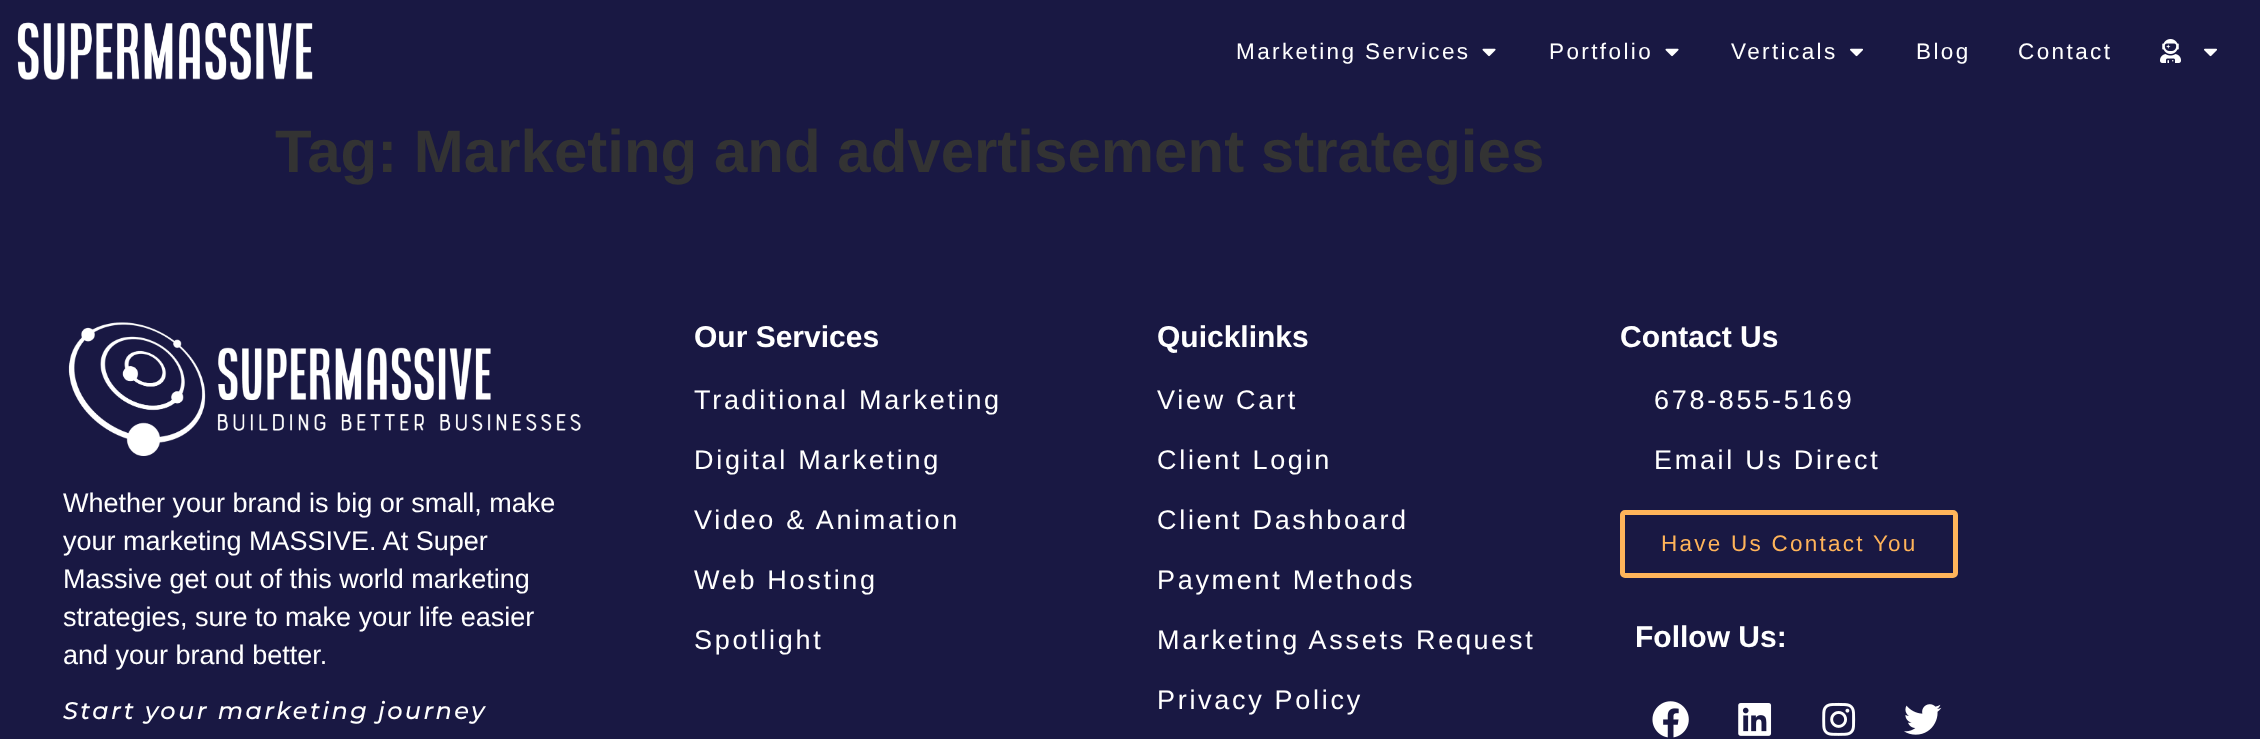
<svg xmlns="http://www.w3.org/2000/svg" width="2260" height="739">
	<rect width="100%" height="100%" fill="#191843" />
	<image x="17" y="22" width="296" height="58" href="assets/img1.png" />
	<text x="1236" y="59" font-family="Liberation Sans" font-size="22.5" letter-spacing="2.4" fill="#FFFFFF">Marketing Services</text>
	<image x="1482" y="48" width="14" height="9" href="assets/img2.png" />
	<text x="1549" y="59" font-family="Liberation Sans" font-size="22.5" letter-spacing="2.4" fill="#FFFFFF">Portfolio</text>
	<image x="1665" y="48" width="14" height="9" href="assets/img2.png" />
	<text x="1731" y="59" font-family="Liberation Sans" font-size="22.5" letter-spacing="2.4" fill="#FFFFFF">Verticals</text>
	<image x="1850" y="48" width="13" height="9" href="assets/img3.png" />
	<g font-family="Liberation Sans" font-size="22.5" letter-spacing="2.4" fill="#FFFFFF">
		<text x="1916" y="59">Blog</text>
		<text x="2018" y="59">Contact</text>
	</g>
	<image x="2160" y="39" width="21" height="24" href="assets/img4.png" />
	<image x="2204" y="48" width="13" height="9" href="assets/img3.png" />
	<text x="275" y="172" font-family="Liberation Sans" font-size="60" font-weight="700" fill="#333333">Tag: Marketing and advertisement strategies</text>
	<image x="68" y="322" width="513" height="134" href="assets/img5.png" />
	<g font-family="Liberation Sans" font-size="27" fill="#FFFFFF">
		<text x="63" y="512">Whether your brand is big or small, make</text>
		<text x="63" y="550">your marketing MASSIVE. At Super</text>
		<text x="63" y="588">Massive get out of this world marketing</text>
		<text x="63" y="626">strategies, sure to make your life easier</text>
		<text x="63" y="664">and your brand better.</text>
	</g>
	<text x="63" y="719" font-family="Montserrat" font-size="24" font-weight="500" font-style="italic" letter-spacing="2.4" fill="#FFFFFF">Start your marketing journey</text>
	<text x="694" y="347" font-family="Liberation Sans" font-size="30" font-weight="700" fill="#FFFFFF">Our Services</text>
	<g font-family="Liberation Sans" font-size="27" letter-spacing="2.7" fill="#FFFFFF">
		<text x="694" y="409">Traditional Marketing</text>
		<text x="694" y="469">Digital Marketing</text>
		<text x="694" y="529">Video &amp; Animation</text>
		<text x="694" y="589">Web Hosting</text>
		<text x="694" y="649">Spotlight</text>
	</g>
	<text x="1157" y="347" font-family="Liberation Sans" font-size="30" font-weight="700" fill="#FFFFFF">Quicklinks</text>
	<g font-family="Liberation Sans" font-size="27" letter-spacing="2.7" fill="#FFFFFF">
		<text x="1157" y="409">View Cart</text>
		<text x="1157" y="469">Client Login</text>
		<text x="1157" y="529">Client Dashboard</text>
		<text x="1157" y="589">Payment Methods</text>
		<text x="1157" y="649">Marketing Assets Request</text>
		<text x="1157" y="709">Privacy Policy</text>
	</g>
	<text x="1620" y="347" font-family="Liberation Sans" font-size="30" font-weight="700" fill="#FFFFFF">Contact Us</text>
	<g font-family="Liberation Sans" font-size="27" letter-spacing="2.7" fill="#FFFFFF">
		<text x="1654" y="409">678-855-5169</text>
		<text x="1654" y="469">Email Us Direct</text>
	</g>
	<rect x="1622.5" y="512.5" width="333" height="63" rx="2.5" fill="none" stroke="#FFB45A" stroke-width="5" />
	<text x="1661" y="551" font-family="Liberation Sans" font-size="22.5" letter-spacing="2.25" fill="#FFB45A">Have Us Contact You</text>
	<text x="1635" y="647" font-family="Liberation Sans" font-size="30" font-weight="700" fill="#FFFFFF">Follow Us:</text>
	<image x="1652" y="701" width="37" height="37" href="assets/img6.png" />
	<image x="1738" y="703" width="34" height="33" href="assets/img7.png" />
	<image x="1822" y="702" width="34" height="34" href="assets/img8.png" />
	<image x="1904" y="704" width="38" height="31" href="assets/img9.png" />
</svg>
